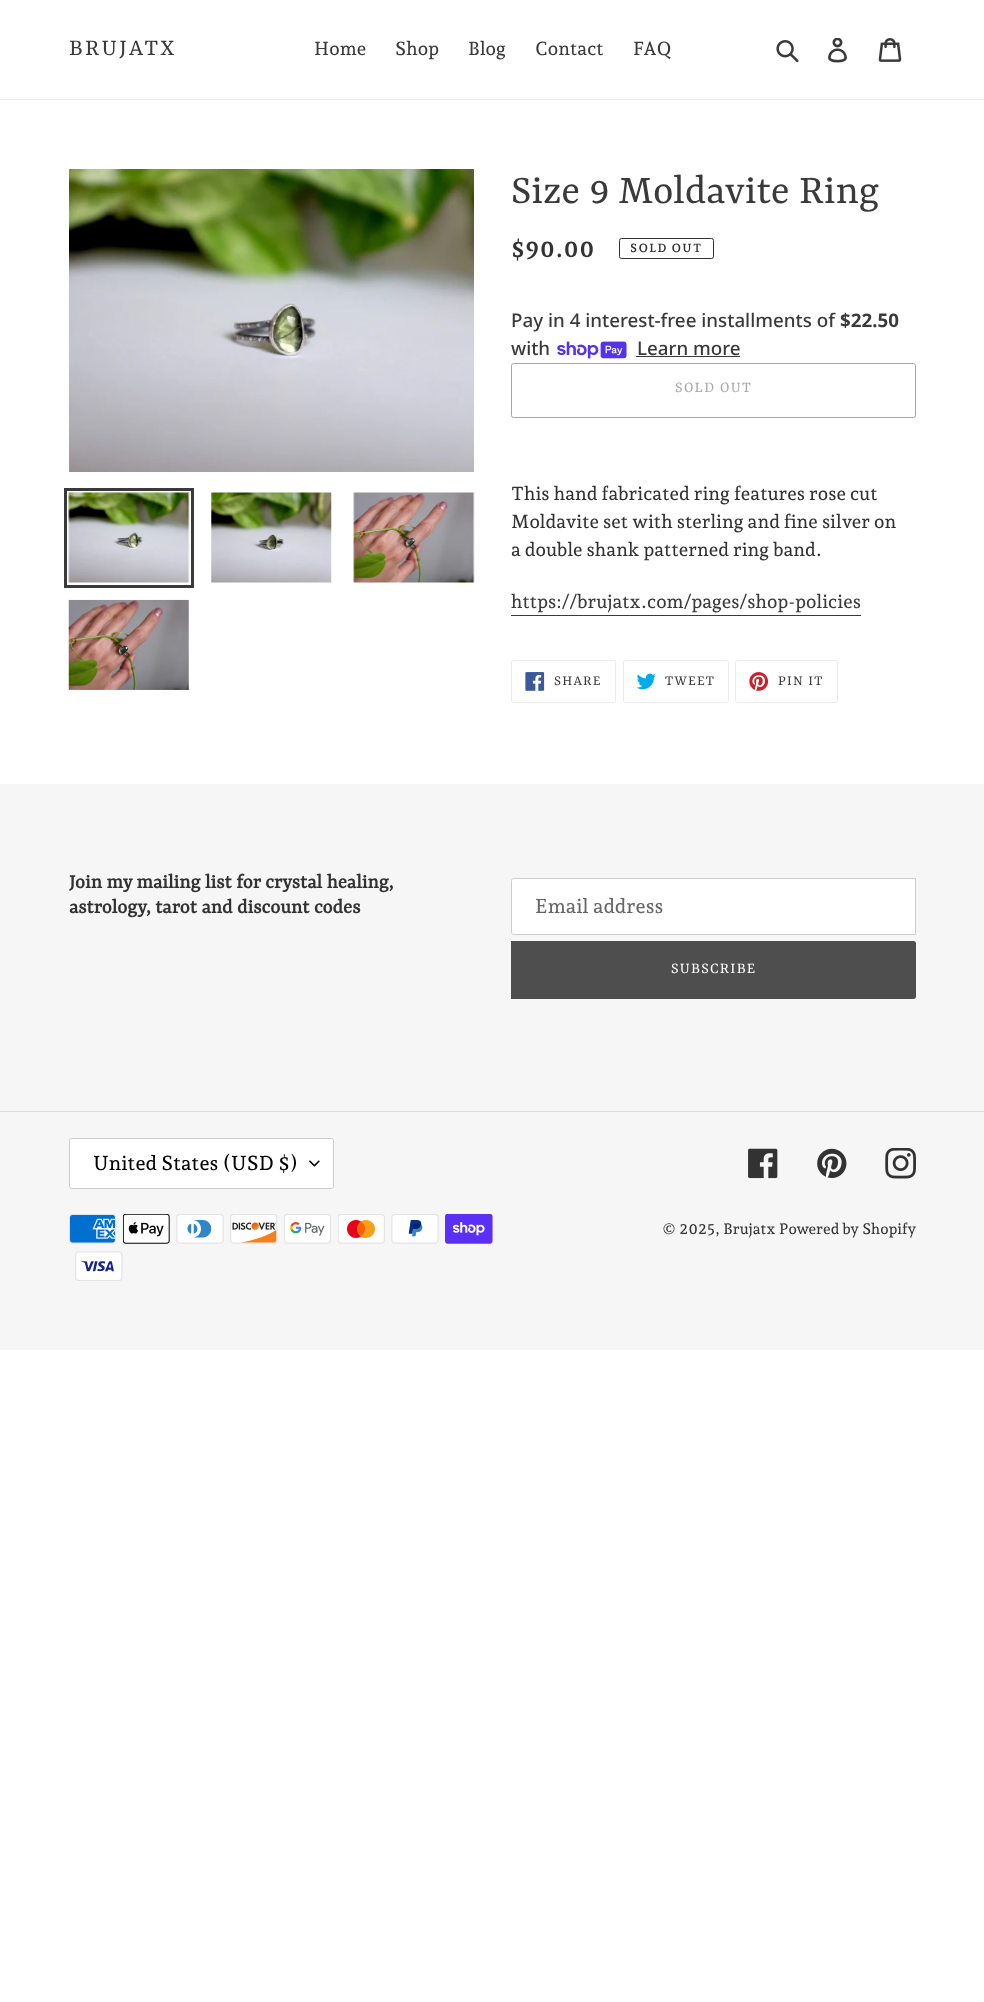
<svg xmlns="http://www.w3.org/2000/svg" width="984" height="2002">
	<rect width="100%" height="100%" fill="#FFFFFF" />
	<rect x="0" y="99" width="984" height="1" fill="#EBEBEB" />
	<text x="69" y="55" font-family="Rasa" font-size="25" letter-spacing="2.5" fill="#3A3A3A">BRUJATX</text>
	<g font-family="Andada Pro" font-size="18.75" font-weight="500" fill="#3A3A3A">
		<text x="314" y="55">Home</text>
		<text x="395" y="55">Shop</text>
		<text x="468" y="55">Blog</text>
		<text x="535" y="55">Contact</text>
		<text x="633" y="55">FAQ</text>
	</g>
	<image x="776" y="40" width="23" height="23" href="assets/img1.png" />
	<image x="828" y="38" width="19" height="25" href="assets/img2.png" />
	<image x="878" y="38" width="24" height="24" href="assets/img3.png" />
	<image x="69" y="169" width="405" height="303" href="assets/img4.png" />
	<rect x="65.5" y="489.5" width="127" height="97" fill="none" stroke="#3A3A3A" stroke-width="3" />
	<image x="68" y="492" width="122" height="91" href="assets/img5.png" />
	<image x="211" y="492" width="121" height="91" href="assets/img6.png" />
	<image x="353" y="492" width="122" height="91" href="assets/img7.png" />
	<image x="68" y="599" width="121" height="91" href="assets/img8.png" />
	<text x="511" y="203" font-family="Rasa" font-size="43.75" fill="#3A3A3A">Size 9 Moldavite Ring</text>
	<text x="511" y="257" font-family="Andada Pro" font-size="23.5" font-weight="700" fill="#333232">$90.00</text>
	<rect x="619.5" y="238.5" width="94" height="20" rx="2" fill="none" stroke="#333232" />
	<text x="630" y="252" font-family="Andada Pro" font-size="11.75" font-weight="700" letter-spacing="1.25" fill="#333232">SOLD OUT</text>
	<text x="511" y="327" font-family="Noto Sans" font-size="18.75" font-weight="500" fill="#3A3A3A">Pay in 4 interest-free installments of</text>
	<text x="840" y="327" font-family="Noto Sans" font-size="18.75" font-weight="700" fill="#3A3A3A">$22.50</text>
	<text x="511" y="355" font-family="Noto Sans" font-size="18.75" font-weight="500" fill="#3A3A3A">with</text>
	<image x="557" y="341" width="70" height="18" href="assets/img9.png" />
	<text x="637" y="355" font-family="Noto Sans" font-size="18.75" font-weight="500" fill="#3A3A3A">Learn more</text>
	<rect x="636" y="356" width="104" height="1" fill="#3A3A3A" />
	<rect x="511.5" y="363.5" width="404" height="54" rx="2" fill="none" stroke="#A7A7A7" />
	<text x="675" y="392" font-family="Rasa" font-size="16.25" letter-spacing="1.25" fill="#A7A7A7">SOLD OUT</text>
	<g font-family="Andada Pro" font-size="18.75" font-weight="500" fill="#333232">
		<text x="511" y="500">This hand fabricated ring features rose cut</text>
		<text x="511" y="528">Moldavite set with sterling and fine silver on</text>
		<text x="511" y="556">a double shank patterned ring band.</text>
	</g>
	<text x="511" y="608" font-family="Andada Pro" font-size="18.75" font-weight="500" fill="#3A3A3A">https://brujatx.com/pages/shop-policies</text>
	<rect x="511" y="615" width="350" height="1" fill="#3A3A3A" />
	<rect x="511.5" y="660.5" width="104" height="42" rx="2" fill="none" stroke="#EBEBEB" />
	<image x="525" y="672" width="20" height="19" href="assets/img10.png" />
	<text x="554" y="685" font-family="Rasa" font-size="15" letter-spacing="1.25" fill="#3A3A3A">SHARE</text>
	<rect x="623.5" y="660.5" width="105" height="42" rx="2" fill="none" stroke="#EBEBEB" />
	<image x="636" y="673" width="20" height="17" href="assets/img11.png" />
	<text x="665" y="685" font-family="Rasa" font-size="15" letter-spacing="1.25" fill="#3A3A3A">TWEET</text>
	<rect x="735.5" y="660.5" width="102" height="42" rx="2" fill="none" stroke="#EBEBEB" />
	<image x="749" y="672" width="20" height="19" href="assets/img12.png" />
	<text x="778" y="685" font-family="Rasa" font-size="15" letter-spacing="1.25" fill="#3A3A3A">PIN IT</text>
	<rect x="0" y="784" width="984" height="566" fill="#F6F6F6" />
	<g font-family="Rasa" font-size="21.25" font-weight="700" fill="#333232">
		<text x="69" y="888">Join my mailing list for crystal healing,</text>
		<text x="69" y="913">astrology, tarot and discount codes</text>
	</g>
	<path d="M513.5 878.5H915.5V934.5H513.5C512.5 934.5 511.5 933.5 511.5 932.5V880.5C511.5 879.5 512.5 878.5 513.5 878.5Z" fill="#FFFFFF" stroke="#CCCCCC" />
	<text x="535" y="913" font-family="Andada Pro" font-size="20" font-weight="500" fill="#666666">Email address</text>
	<path d="M511 941H913.5C915 941 916 942 916 943.5V996.5C916 998 915 999 913.5 999H511Z" fill="#4E4E4E" />
	<text x="671" y="973" font-family="Rasa" font-size="16.25" letter-spacing="1.25" fill="#FFFFFF">SUBSCRIBE</text>
	<rect x="0" y="1111" width="984" height="1" fill="#DDDDDD" />
	<rect x="69" y="1138" width="265" height="51" rx="2.5" fill="#FFFFFF" />
	<image x="309" y="1160" width="11" height="7" href="assets/img13.png" />
	<rect x="69.5" y="1138.5" width="264" height="50" rx="2" fill="none" stroke="#CCCCCC" />
	<text x="93" y="1170" font-family="Andada Pro" font-size="20" font-weight="500" fill="#000000">United States (USD $)</text>
	<image x="748" y="1148" width="30" height="31" href="assets/img14.png" />
	<image x="817" y="1148" width="30" height="30" href="assets/img15.png" />
	<image x="885" y="1148" width="31" height="31" href="assets/img16.png" />
	<image x="69" y="1214" width="47" height="30" href="assets/img17.png" />
	<image x="123" y="1214" width="47" height="30" href="assets/img18.png" />
	<image x="176" y="1214" width="48" height="30" href="assets/img19.png" />
	<image x="230" y="1214" width="48" height="30" href="assets/img20.png" />
	<image x="284" y="1214" width="47" height="30" href="assets/img21.png" />
	<image x="338" y="1214" width="47" height="30" href="assets/img22.png" />
	<image x="391" y="1214" width="48" height="30" href="assets/img23.png" />
	<image x="445" y="1214" width="48" height="30" href="assets/img24.png" />
	<image x="75" y="1251" width="48" height="30" href="assets/img25.png" />
	<g font-family="Andada Pro" font-size="15" font-weight="500" fill="#333232">
		<text x="662" y="1234">© 2025, Brujatx</text>
		<text x="779" y="1234">Powered by Shopify</text>
	</g>
</svg>
